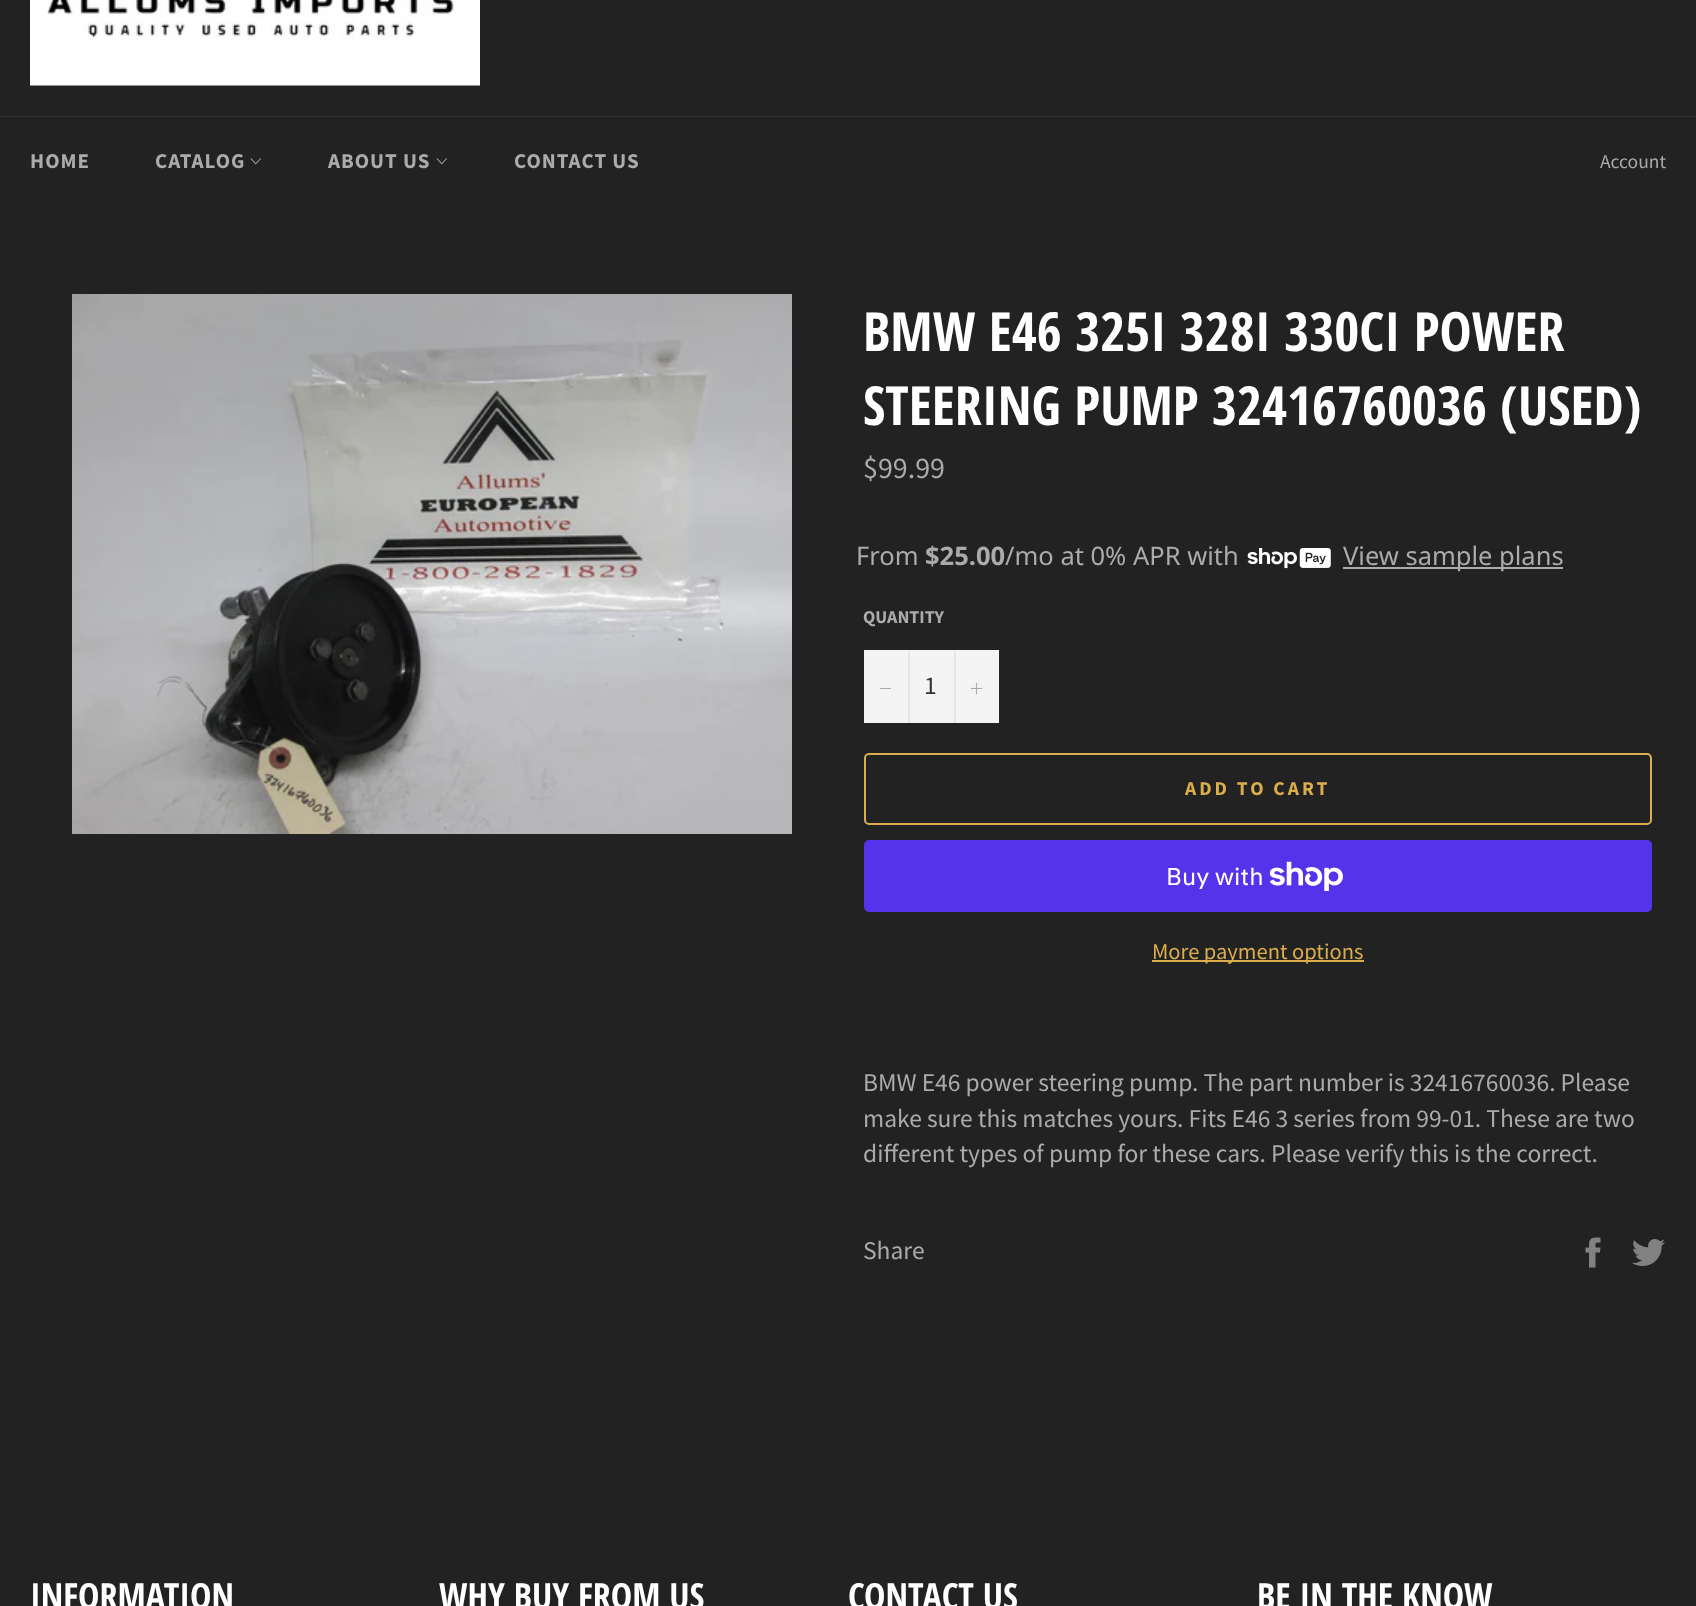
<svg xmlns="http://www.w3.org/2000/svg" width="1696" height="1606">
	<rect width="100%" height="100%" fill="#222222" />
	<image x="30" y="0" width="450" height="86" href="assets/img1.png" />
	<rect x="0" y="116" width="1696" height="1" fill="#2F2F2F" />
	<g font-family="Source Sans Pro" font-size="21" font-weight="700" letter-spacing="1" fill="#ABABAB">
		<text x="30" y="168">HOME</text>
		<text x="155" y="168">CATALOG</text>
	</g>
	<image x="250" y="158" width="11" height="7" href="assets/img2.png" />
	<text x="328" y="168" font-family="Source Sans Pro" font-size="21" font-weight="700" letter-spacing="1" fill="#ABABAB">ABOUT US</text>
	<image x="436" y="158" width="11" height="7" href="assets/img2.png" />
	<text x="514" y="168" font-family="Source Sans Pro" font-size="21" font-weight="700" letter-spacing="1" fill="#ABABAB">CONTACT US</text>
	<text x="1600" y="168" font-family="Source Sans Pro" font-size="19.5" fill="#ABABAB">Account</text>
	<image x="72" y="294" width="720" height="540" href="assets/img3.png" />
	<g font-family="Open Sans Condensed" font-size="54" font-weight="700" fill="#FFFFFF">
		<text x="863" y="351">BMW E46 325I 328I 330CI POWER</text>
		<text x="863" y="425">STEERING PUMP 32416760036 (USED)</text>
	</g>
	<text x="863" y="478" font-family="Source Sans Pro" font-size="30" fill="#ABABAB">$99.99</text>
	<text x="856" y="565" font-family="Noto Sans" font-size="25.5" fill="#ABABAB">From</text>
	<text x="925" y="565" font-family="Noto Sans" font-size="25.5" font-weight="700" fill="#ABABAB">$25.00</text>
	<text x="1005" y="565" font-family="Noto Sans" font-size="25.5" fill="#ABABAB">/mo at 0% APR with</text>
	<image x="1247" y="548" width="84" height="21" href="assets/img4.png" />
	<rect x="1343" y="567" width="220" height="2" fill="#ABABAB" />
	<text x="1343" y="565" font-family="Noto Sans" font-size="25.5" fill="#ABABAB">View sample plans</text>
	<text x="863" y="623" font-family="Source Sans Pro" font-size="18" font-weight="700" fill="#ABABAB">QUANTITY</text>
	<rect x="864" y="650" width="135" height="73" fill="#F4F4F4" />
	<rect x="908" y="650" width="2" height="73" fill="#E7E7E7" />
	<rect x="880" y="688" width="11" height="1" fill="#ABABAB" />
	<text x="924" y="694" font-family="Source Sans Pro" font-size="25.5" fill="#333333">1</text>
	<rect x="954" y="650" width="2" height="73" fill="#E7E7E7" />
	<image x="971" y="683" width="12" height="12" href="assets/img5.png" />
	<rect x="865" y="754" width="786" height="70" rx="4" fill="none" stroke="#DBAE4B" stroke-width="2" />
	<text x="1185" y="795" font-family="Source Sans Pro" font-size="19.5" font-weight="700" letter-spacing="3" fill="#DBAE4B">ADD TO CART</text>
	<rect x="864" y="840" width="788" height="72" rx="5" fill="#5433EB" />
	<text x="1166" y="885" font-family="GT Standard" font-size="24" fill="#FFFFFF">Buy with</text>
	<image x="1269" y="861" width="74" height="30" href="assets/img6.png" />
	<rect x="1152" y="960" width="212" height="2" fill="#DBAE4B" />
	<text x="1152" y="959" font-family="Source Sans Pro" font-size="22.5" fill="#DBAE4B">More payment options</text>
	<g font-family="Source Sans Pro" font-size="25.5" fill="#ABABAB">
		<text x="863" y="1091">BMW E46 power steering pump. The part number is 32416760036. Please</text>
		<text x="863" y="1127">make sure this matches yours. Fits E46 3 series from 99-01. These are two</text>
		<text x="863" y="1162">different types of pump for these cars. Please verify this is the correct.</text>
		<text x="863" y="1259">Share</text>
	</g>
	<image x="1585" y="1237" width="16" height="31" href="assets/img7.png" />
	<image x="1632" y="1239" width="33" height="27" href="assets/img8.png" />
	<g font-family="Open Sans Condensed" font-size="36" font-weight="700" fill="#FFFFFF">
		<text x="30" y="1609">INFORMATION</text>
		<text x="439" y="1609">WHY BUY FROM US</text>
		<text x="848" y="1609">CONTACT US</text>
		<text x="1257" y="1609">BE IN THE KNOW</text>
	</g>
</svg>
